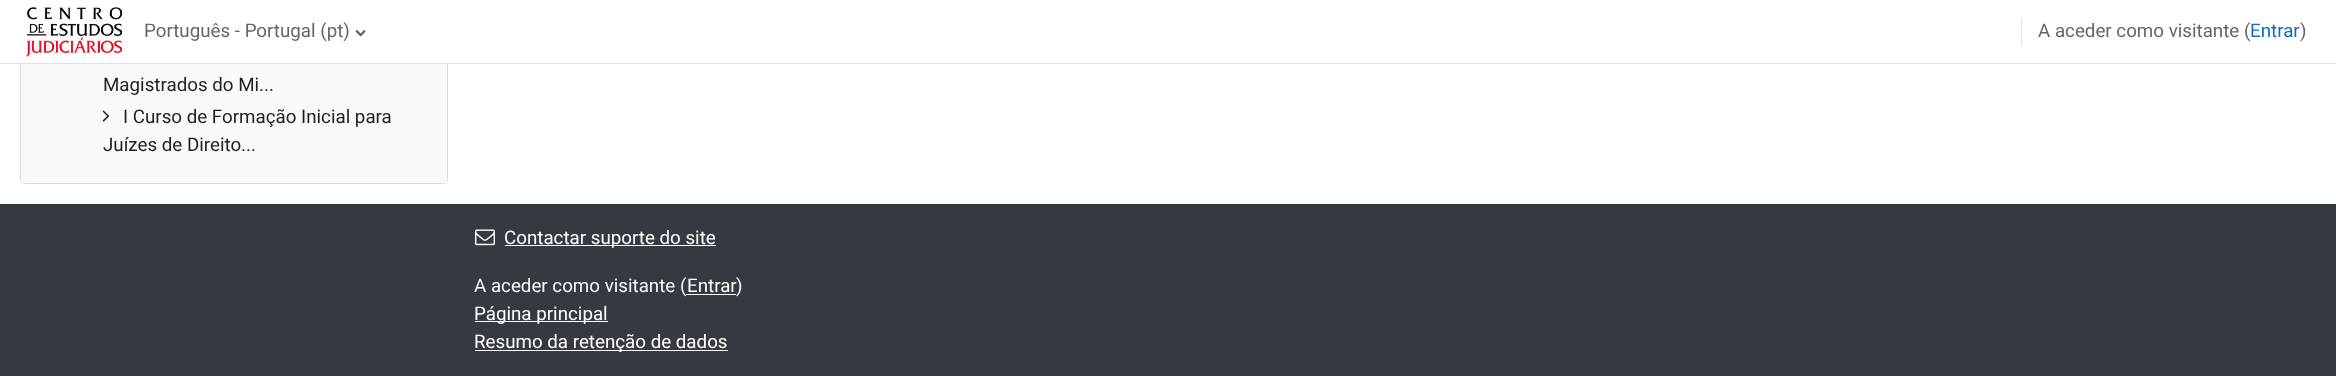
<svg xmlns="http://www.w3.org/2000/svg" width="2336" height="376">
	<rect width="100%" height="100%" fill="#FFFFFF" />
	<rect x="20" y="-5" width="428" height="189" rx="5" fill="#F8F9FA" />
	<rect x="20.5" y="-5.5" width="427" height="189" rx="4.5" fill="none" stroke="#000000" stroke-opacity="0.12" />
	<rect x="20" y="0" width="428" height="63" fill="#FFFFFF" />
	<rect x="0" y="63" width="2336" height="1" fill="#DEE2E6" />
	<image x="25" y="7" width="98" height="50" href="assets/img1.png" />
	<text x="144" y="37" font-family="Roboto" font-size="18.75" fill="#666666">Português - Portugal (pt)</text>
	<image x="355" y="30" width="11" height="7" href="assets/img2.png" />
	<rect x="2021" y="19" width="1" height="26" fill="#DEE2E6" />
	<text x="2038" y="37" font-family="Roboto" font-size="18.75" fill="#666666">A aceder como visitante (</text>
	<text x="2250" y="37" font-family="Roboto" font-size="18.75" fill="#0F6CBF">Entrar</text>
	<text x="2300" y="37" font-family="Roboto" font-size="18.75" fill="#666666">)</text>
	<text x="103" y="91" font-family="Roboto" font-size="18.75" fill="#1D2125">Magistrados do Mi...</text>
	<image x="102" y="110" width="8" height="12" href="assets/img3.png" />
	<g font-family="Roboto" font-size="18.75" fill="#1D2125">
		<text x="123" y="123">I Curso de Formação Inicial para</text>
		<text x="103" y="151">Juízes de Direito...</text>
	</g>
	<rect x="0" y="204" width="2336" height="172" fill="#343A40" />
	<image x="475" y="229" width="20" height="17" href="assets/img4.png" />
	<rect x="505" y="245" width="211" height="1" fill="#FFFFFF" />
	<text x="504" y="244" font-family="Roboto" font-size="18.75" fill="#FFFFFF">Contactar suporte do site</text>
	<text x="474" y="292" font-family="Roboto" font-size="18.75" fill="#F8F9FA">A aceder como visitante (</text>
	<text x="687" y="292" font-family="Roboto" font-size="18.75" fill="#FFFFFF">Entrar</text>
	<rect x="686" y="294" width="50" height="1" fill="#FFFFFF" />
	<text x="736" y="292" font-family="Roboto" font-size="18.75" fill="#F8F9FA">)</text>
	<rect x="475" y="321" width="133" height="1" fill="#FFFFFF" />
	<text x="474" y="320" font-family="Roboto" font-size="18.75" fill="#FFFFFF">Página principal</text>
	<rect x="475" y="350" width="253" height="1" fill="#FFFFFF" />
	<text x="474" y="348" font-family="Roboto" font-size="18.75" fill="#FFFFFF">Resumo da retenção de dados</text>
</svg>
